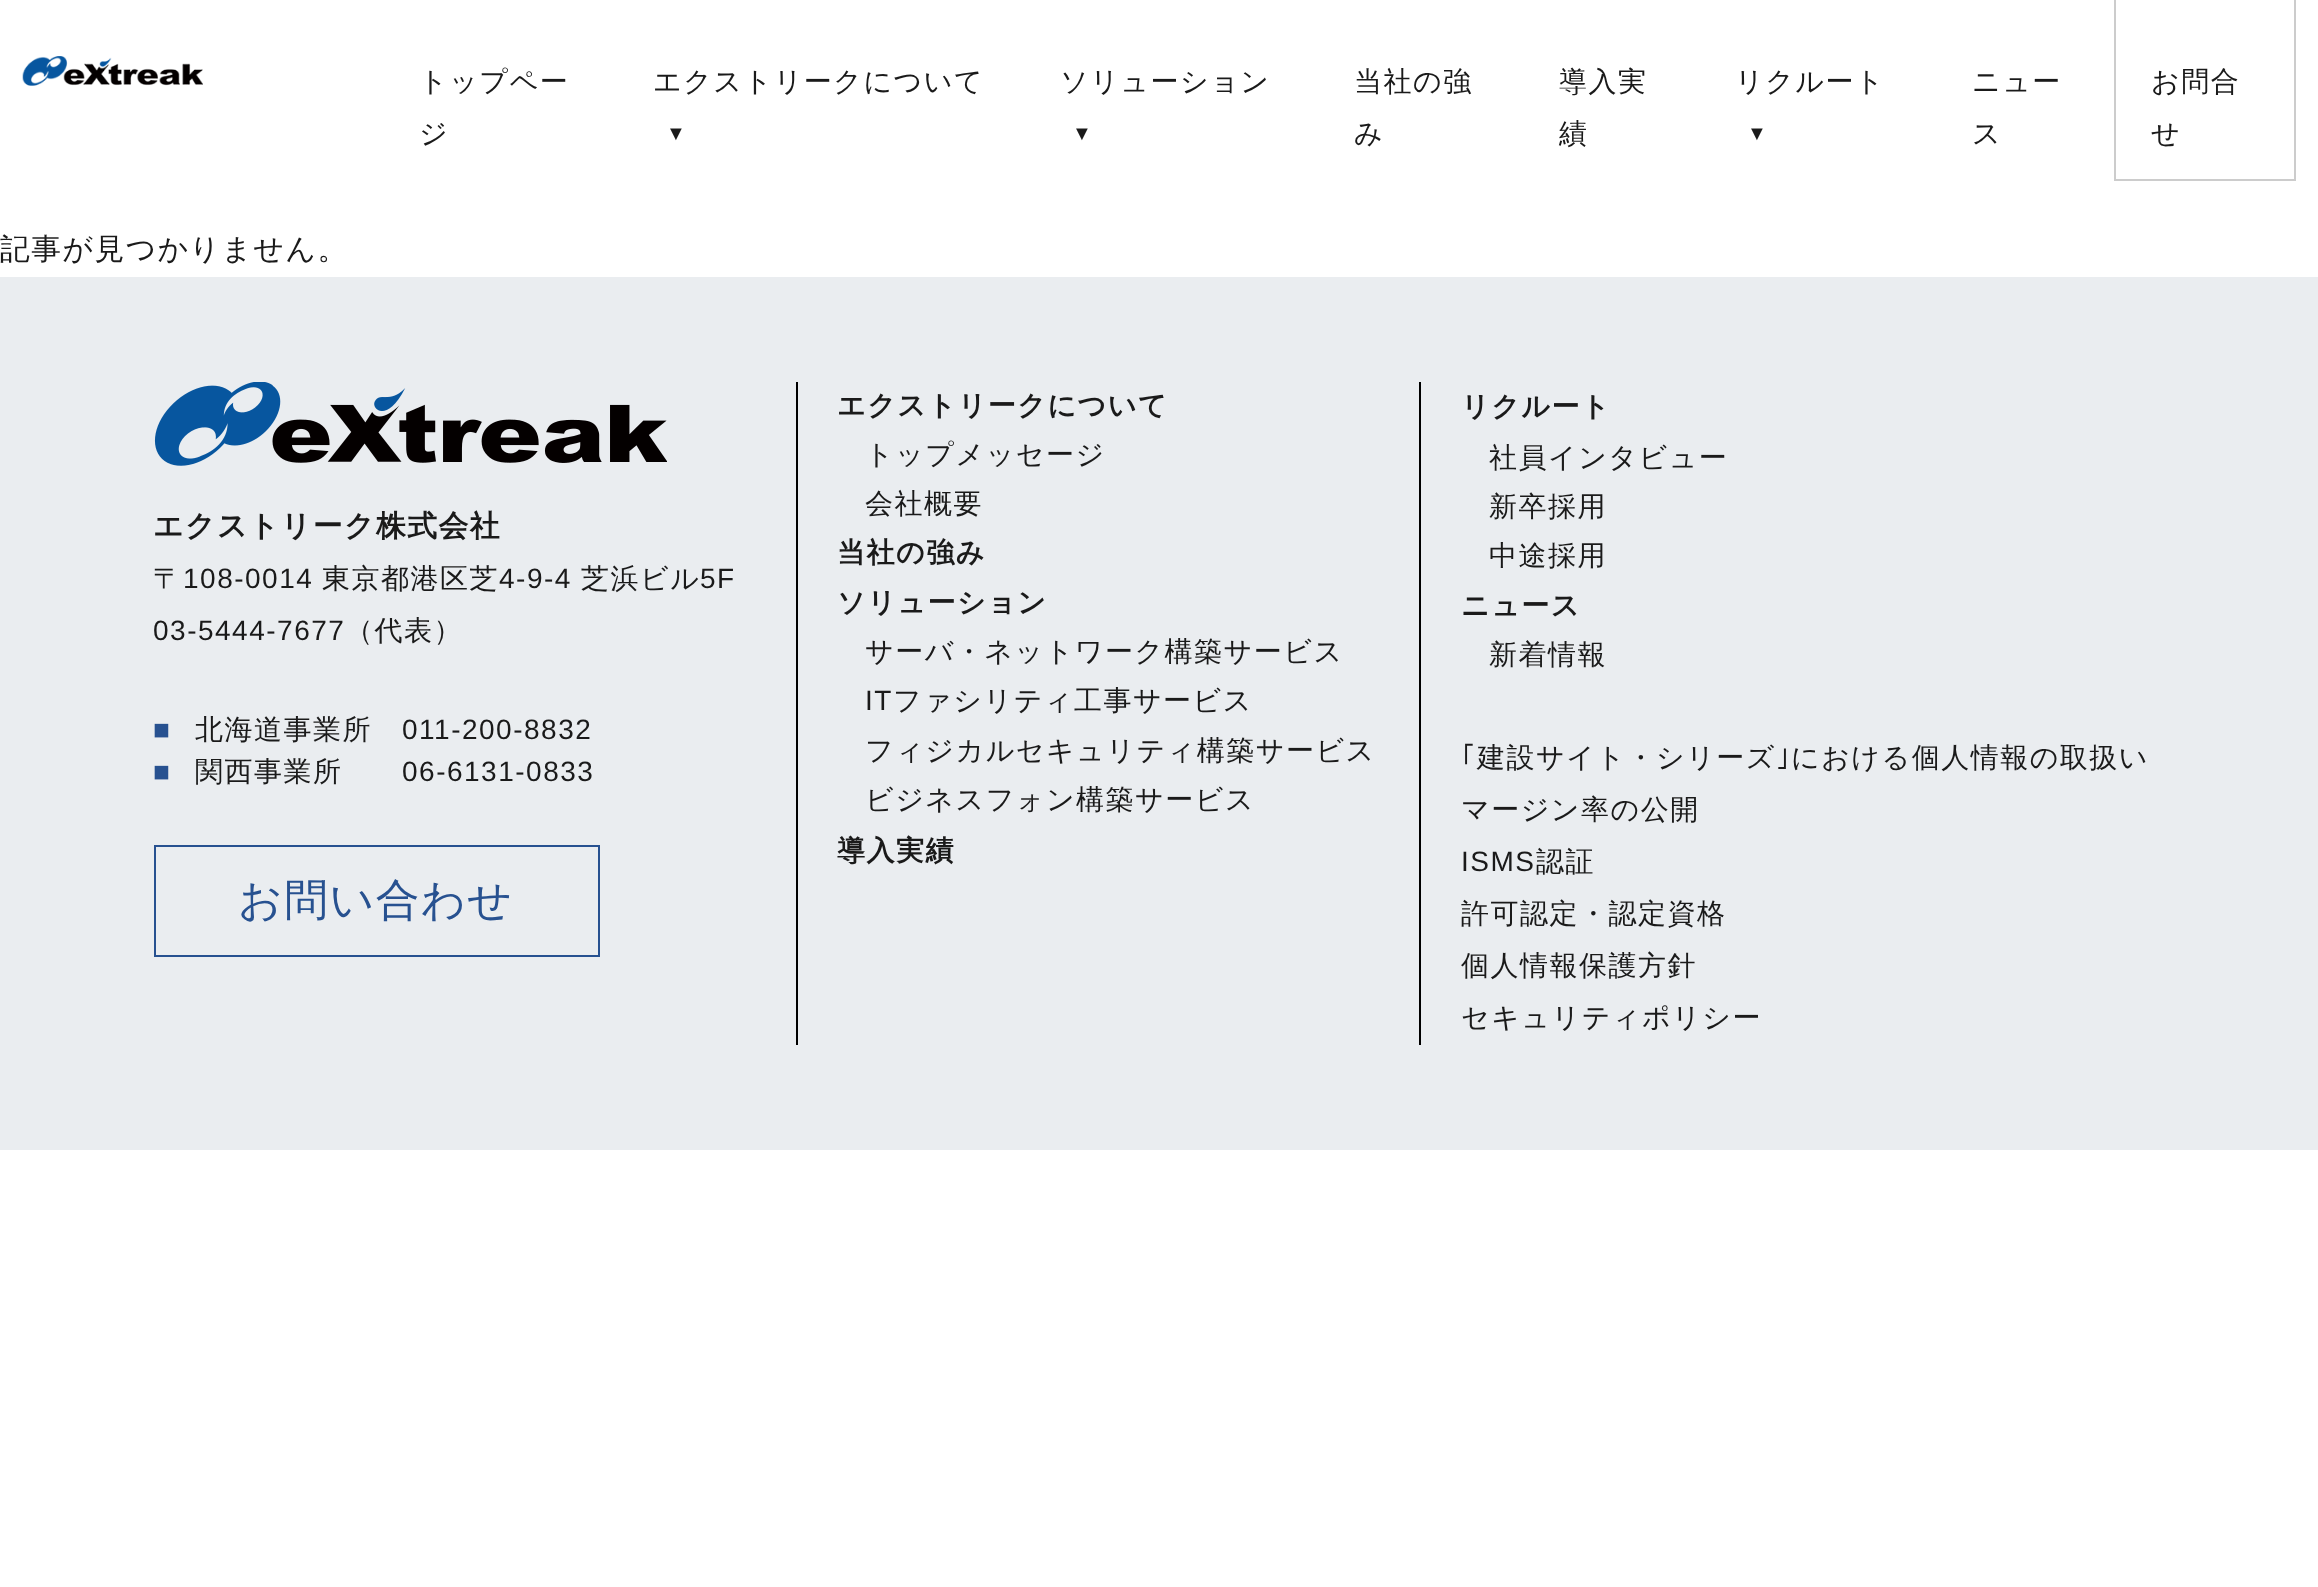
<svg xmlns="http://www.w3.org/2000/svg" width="2318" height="1587">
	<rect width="100%" height="100%" fill="#FFFFFF" />
	<image x="22" y="56" width="181" height="30" href="assets/img1.png" />
	<g font-family="WenQuanYi Zen Hei" font-size="28" font-weight="500" letter-spacing="1.5" fill="#1A1A1A">
		<text x="419" y="91">トップペー</text>
		<text x="419" y="143">ジ</text>
		<text x="653" y="91">エクストリークについて</text>
	</g>
	<text x="666" y="140" font-family="Liberation Sans" font-size="20" letter-spacing="1.5" fill="#1A1A1A">▼</text>
	<text x="1060" y="91" font-family="WenQuanYi Zen Hei" font-size="28" font-weight="500" letter-spacing="1.5" fill="#1A1A1A">ソリューション</text>
	<text x="1072" y="140" font-family="Liberation Sans" font-size="20" letter-spacing="1.5" fill="#1A1A1A">▼</text>
	<g font-family="WenQuanYi Zen Hei" font-size="28" font-weight="500" letter-spacing="1.5" fill="#1A1A1A">
		<text x="1354" y="91">当社の強</text>
		<text x="1354" y="143">み</text>
		<text x="1559" y="91">導入実</text>
		<text x="1559" y="143">績</text>
		<text x="1735" y="91">リクルート</text>
	</g>
	<text x="1747" y="140" font-family="Liberation Sans" font-size="20" letter-spacing="1.5" fill="#1A1A1A">▼</text>
	<g font-family="WenQuanYi Zen Hei" font-size="28" font-weight="500" letter-spacing="1.5" fill="#1A1A1A">
		<text x="1972" y="91">ニュー</text>
		<text x="1972" y="143">ス</text>
	</g>
	<rect x="2294" y="0" width="2" height="180" fill="#CCCCCC" />
	<rect x="2114" y="179" width="182" height="2" fill="#CCCCCC" />
	<rect x="2114" y="0" width="2" height="180" fill="#CCCCCC" />
	<g font-family="WenQuanYi Zen Hei" font-size="28" font-weight="500" letter-spacing="1.5" fill="#1A1A1A">
		<text x="2151" y="91">お問合</text>
		<text x="2151" y="143">せ</text>
	</g>
	<text x="0" y="259" font-family="WenQuanYi Zen Hei" font-size="29.75" font-weight="500" letter-spacing="1.5" fill="#1A1A1A">記事が見つかりません。</text>
	<rect x="0" y="277" width="2318" height="873" fill="#EAEDF0" />
	<rect x="796" y="382" width="2" height="663" fill="#000000" />
	<image x="154" y="382" width="513" height="84" href="assets/img2.png" />
	<text x="153" y="536" font-family="WenQuanYi Zen Hei" font-size="29.75" font-weight="700" letter-spacing="1.5" fill="#1A1A1A">エクストリーク株式会社</text>
	<text x="153" y="588" font-family="WenQuanYi Zen Hei" font-size="28" font-weight="500" letter-spacing="1.5" fill="#1A1A1A">〒</text>
	<text x="183" y="588" font-family="Liberation Sans" font-size="28" letter-spacing="1.5" fill="#1A1A1A">108-0014</text>
	<text x="322" y="588" font-family="WenQuanYi Zen Hei" font-size="28" font-weight="500" letter-spacing="1.5" fill="#1A1A1A">東京都港区芝</text>
	<text x="499" y="588" font-family="Liberation Sans" font-size="28" letter-spacing="1.5" fill="#1A1A1A">4-9-4</text>
	<text x="581" y="588" font-family="WenQuanYi Zen Hei" font-size="28" font-weight="500" letter-spacing="1.5" fill="#1A1A1A">芝浜ビル</text>
	<g font-family="Liberation Sans" font-size="28" letter-spacing="1.5" fill="#1A1A1A">
		<text x="700" y="588">5F</text>
		<text x="153" y="640">03-5444-7677</text>
	</g>
	<text x="345" y="640" font-family="WenQuanYi Zen Hei" font-size="28" font-weight="500" letter-spacing="1.5" fill="#1A1A1A">（代表）</text>
	<text x="153" y="739" font-family="Liberation Sans" font-size="28" letter-spacing="1.5" fill="#275190">■</text>
	<text x="195" y="739" font-family="WenQuanYi Zen Hei" font-size="28" font-weight="500" letter-spacing="1.5" fill="#1A1A1A">北海道事業所</text>
	<text x="402" y="739" font-family="Liberation Sans" font-size="28" letter-spacing="1.5" fill="#1A1A1A">011-200-8832</text>
	<text x="153" y="781" font-family="Liberation Sans" font-size="28" letter-spacing="1.5" fill="#275190">■</text>
	<text x="195" y="781" font-family="WenQuanYi Zen Hei" font-size="28" font-weight="500" letter-spacing="1.5" fill="#1A1A1A">関西事業所</text>
	<text x="402" y="781" font-family="Liberation Sans" font-size="28" letter-spacing="1.5" fill="#1A1A1A">06-6131-0833</text>
	<rect x="155" y="846" width="444" height="110" fill="none" stroke="#275190" stroke-width="2" />
	<text x="238" y="915" font-family="WenQuanYi Zen Hei" font-size="43.75" font-weight="500" letter-spacing="1.5" fill="#275190">お問い合わせ</text>
	<rect x="1419" y="382" width="2" height="663" fill="#000000" />
	<text x="837" y="415" font-family="WenQuanYi Zen Hei" font-size="28" font-weight="700" letter-spacing="1.5" fill="#1A1A1A">エクストリークについて</text>
	<g font-family="WenQuanYi Zen Hei" font-size="28" font-weight="500" letter-spacing="1.5" fill="#1A1A1A">
		<text x="865" y="464">トップメッセージ</text>
		<text x="865" y="513">会社概要</text>
	</g>
	<g font-family="WenQuanYi Zen Hei" font-size="28" font-weight="700" letter-spacing="1.5" fill="#1A1A1A">
		<text x="837" y="562">当社の強み</text>
		<text x="837" y="612">ソリューション</text>
	</g>
	<text x="865" y="661" font-family="WenQuanYi Zen Hei" font-size="28" font-weight="500" letter-spacing="1.5" fill="#1A1A1A">サーバ・ネットワーク構築サービス</text>
	<text x="865" y="710" font-family="Liberation Sans" font-size="28" letter-spacing="1.5" fill="#1A1A1A">IT</text>
	<g font-family="WenQuanYi Zen Hei" font-size="28" font-weight="500" letter-spacing="1.5" fill="#1A1A1A">
		<text x="893" y="710">ファシリティ工事サービス</text>
		<text x="865" y="760">フィジカルセキュリティ構築サービス</text>
		<text x="865" y="809">ビジネスフォン構築サービス</text>
	</g>
	<g font-family="WenQuanYi Zen Hei" font-size="28" font-weight="700" letter-spacing="1.5" fill="#1A1A1A">
		<text x="837" y="860">導入実績</text>
		<text x="1461" y="416">リクルート</text>
	</g>
	<g font-family="WenQuanYi Zen Hei" font-size="28" font-weight="500" letter-spacing="1.5" fill="#1A1A1A">
		<text x="1489" y="467">社員インタビュー</text>
		<text x="1489" y="516">新卒採用</text>
		<text x="1489" y="565">中途採用</text>
	</g>
	<text x="1461" y="615" font-family="WenQuanYi Zen Hei" font-size="28" font-weight="700" letter-spacing="1.5" fill="#1A1A1A">ニュース</text>
	<text x="1489" y="664" font-family="WenQuanYi Zen Hei" font-size="28" font-weight="500" letter-spacing="1.5" fill="#1A1A1A">新着情報</text>
	<text x="1461" y="767" font-family="IPAPGothic" font-size="28" letter-spacing="1.5" fill="#1A1A1A">｢</text>
	<text x="1477" y="767" font-family="WenQuanYi Zen Hei" font-size="28" font-weight="500" letter-spacing="1.5" fill="#1A1A1A">建設サイト・シリーズ</text>
	<text x="1776" y="767" font-family="IPAPGothic" font-size="28" letter-spacing="1.5" fill="#1A1A1A">｣</text>
	<g font-family="WenQuanYi Zen Hei" font-size="28" font-weight="500" letter-spacing="1.5" fill="#1A1A1A">
		<text x="1791" y="767">における個人情報の取扱い</text>
		<text x="1461" y="819">マージン率の公開</text>
	</g>
	<text x="1461" y="871" font-family="Liberation Sans" font-size="28" letter-spacing="1.5" fill="#1A1A1A">ISMS</text>
	<g font-family="WenQuanYi Zen Hei" font-size="28" font-weight="500" letter-spacing="1.5" fill="#1A1A1A">
		<text x="1536" y="871">認証</text>
		<text x="1461" y="923">許可認定・認定資格</text>
		<text x="1461" y="975">個人情報保護方針</text>
		<text x="1461" y="1027">セキュリティポリシー</text>
	</g>
</svg>
